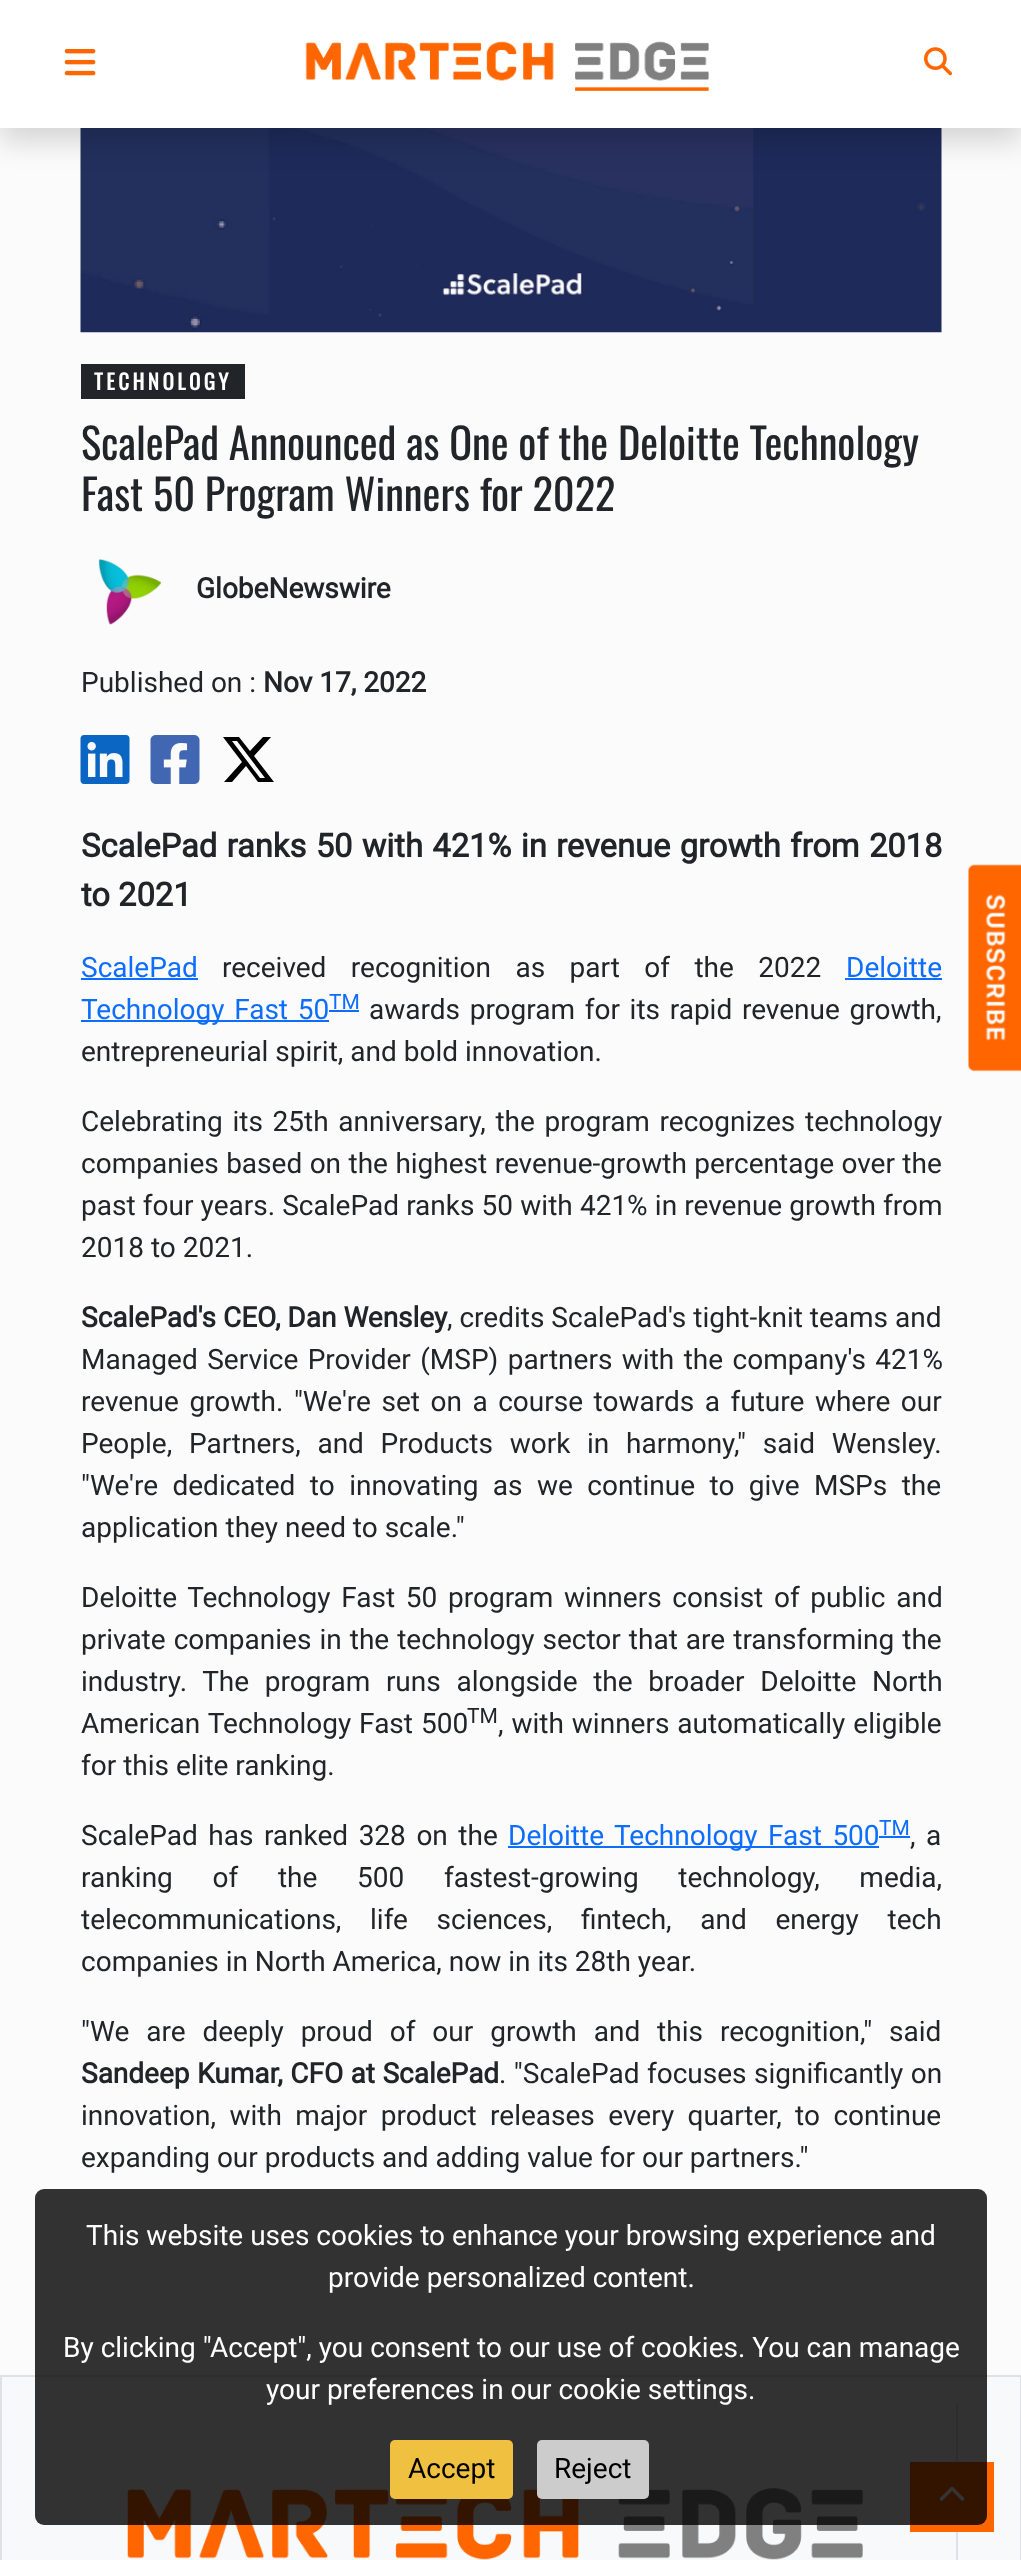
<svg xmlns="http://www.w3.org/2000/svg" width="1021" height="2560">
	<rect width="100%" height="100%" fill="#FBFBFB" />
	<image x="80" y="128" width="862" height="205" href="assets/img4.png" />
	<rect x="0" y="14" width="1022" height="128" fill="#000000" fill-opacity="0.15" filter="blur(14px)" />
	<rect x="0" y="0" width="1021" height="128" fill="#FFFFFF" />
	<image x="64" y="49" width="32" height="27" href="assets/img1.png" />
	<image x="305" y="41" width="404" height="50" href="assets/img2.png" />
	<image x="924" y="47" width="28" height="29" href="assets/img3.png" />
	<rect x="81" y="364" width="164" height="35" fill="#212529" />
	<text x="94" y="390" font-family="Oswald" font-size="21" font-weight="700" letter-spacing="3.5" fill="#FFFFFF">TECHNOLOGY</text>
	<g font-family="Oswald" font-size="42.5" fill="#212529">
		<text x="81" y="460">ScalePad Announced as One of the Deloitte Technology</text>
		<text x="81" y="511">Fast 50 Program Winners for 2022</text>
	</g>
	<image x="98" y="559" width="64" height="66" href="assets/img5.png" />
	<text x="196" y="598" font-family="Roboto" font-size="28" font-weight="700" fill="#212529">GlobeNewswire</text>
	<text x="81" y="692" font-family="Roboto" font-size="28" fill="#212529">Published on :</text>
	<text x="263" y="692" font-family="Roboto" font-size="28" font-weight="700" fill="#212529">Nov 17, 2022</text>
	<image x="80" y="735" width="50" height="49" href="assets/img6.png" />
	<image x="150" y="735" width="50" height="49" href="assets/img7.png" />
	<path d="M263 737H271L254 756L274 782H258L246 766L232 782H224L242 762L223 737H239L250 751ZM260 778H265L237 741H232Z" fill="#000000" />
	<g font-family="Roboto" font-size="32.7" font-weight="700" fill="#212529">
		<text x="81" y="857" word-spacing="1.25">ScalePad ranks 50 with 421% in revenue growth from 2018</text>
		<text x="81" y="906">to 2021</text>
	</g>
	<text x="81" y="977" font-family="Roboto" font-size="28" fill="#0D6EFD">ScalePad</text>
	<rect x="81" y="978" width="117" height="2" fill="#0D6EFD" />
	<text x="222" y="977" word-spacing="17.5" font-family="Roboto" font-size="28" fill="#212529">received recognition as part of the 2022</text>
	<text x="846" y="977" font-family="Roboto" font-size="28" fill="#0D6EFD">Deloitte</text>
	<rect x="845" y="978" width="97" height="2" fill="#0D6EFD" />
	<rect x="81" y="1020" width="248" height="2" fill="#0D6EFD" />
	<text x="81" y="1019" word-spacing="2.75" font-family="Roboto" font-size="28" fill="#0D6EFD">Technology Fast 50</text>
	<rect x="329" y="1010" width="30" height="2" fill="#0D6EFD" />
	<text x="329" y="1009" font-family="Roboto" font-size="21" fill="#0D6EFD">TM</text>
	<g font-family="Roboto" font-size="28" fill="#212529">
		<text x="369" y="1019" word-spacing="2.75">awards program for its rapid revenue growth,</text>
		<text x="81" y="1061">entrepreneurial spirit, and bold innovation.</text>
		<text x="81" y="1131" word-spacing="2.75">Celebrating its 25th anniversary, the program recognizes technology</text>
		<text x="81" y="1173" word-spacing="0.5">companies based on the highest revenue-growth percentage over the</text>
		<text x="81" y="1215" word-spacing="0.25">past four years. ScalePad ranks 50 with 421% in revenue growth from</text>
		<text x="81" y="1257">2018 to 2021.</text>
	</g>
	<text x="81" y="1327" font-family="Roboto" font-size="28" font-weight="700" fill="#212529">ScalePad's CEO, Dan Wensley</text>
	<g font-family="Roboto" font-size="28" fill="#212529">
		<text x="447" y="1327">, credits ScalePad's tight-knit teams and</text>
		<text x="81" y="1369" word-spacing="2.5">Managed Service Provider (MSP) partners with the company's 421%</text>
		<text x="81" y="1411" word-spacing="3.6">revenue growth. "We're set on a course towards a future where our</text>
		<text x="81" y="1453" word-spacing="9.75">People, Partners, and Products work in harmony," said Wensley.</text>
		<text x="81" y="1495" word-spacing="7.5">"We're dedicated to innovating as we continue to give MSPs the</text>
		<text x="81" y="1537">application they need to scale."</text>
		<text x="81" y="1607" word-spacing="3.75">Deloitte Technology Fast 50 program winners consist of public and</text>
		<text x="81" y="1649" word-spacing="1.1">private companies in the technology sector that are transforming the</text>
		<text x="81" y="1691" word-spacing="8.75">industry. The program runs alongside the broader Deloitte North</text>
		<text x="81" y="1733" word-spacing="1">American Technology Fast 500</text>
	</g>
	<text x="467" y="1723" font-family="Roboto" font-size="21" fill="#212529">TM</text>
	<g font-family="Roboto" font-size="28" fill="#212529">
		<text x="498" y="1733" word-spacing="1">, with winners automatically eligible</text>
		<text x="81" y="1775">for this elite ranking.</text>
		<text x="81" y="1845" word-spacing="3.6">ScalePad has ranked 328 on the</text>
	</g>
	<rect x="508" y="1846" width="371" height="2" fill="#0D6EFD" />
	<text x="508" y="1845" word-spacing="3.6" font-family="Roboto" font-size="28" fill="#0D6EFD">Deloitte Technology Fast 500</text>
	<rect x="879" y="1836" width="31" height="2" fill="#0D6EFD" />
	<text x="879" y="1835" font-family="Roboto" font-size="21" fill="#0D6EFD">TM</text>
	<g font-family="Roboto" font-size="28" fill="#212529">
		<text x="910" y="1845" word-spacing="3.6">, a</text>
		<text x="81" y="1887" word-spacing="32.75">ranking of the 500 fastest-growing technology, media,</text>
		<text x="81" y="1929" word-spacing="21.75">telecommunications, life sciences, fintech, and energy tech</text>
		<text x="81" y="1971">companies in North America, now in its 28th year.</text>
		<text x="81" y="2041" word-spacing="10">"We are deeply proud of our growth and this recognition," said</text>
	</g>
	<text x="81" y="2083" word-spacing="0.5" font-family="Roboto" font-size="28" font-weight="700" fill="#212529">Sandeep Kumar, CFO at ScalePad</text>
	<g font-family="Roboto" font-size="28" fill="#212529">
		<text x="499" y="2083" word-spacing="0.5">. "ScalePad focuses significantly on</text>
		<text x="81" y="2125" word-spacing="6.5">innovation, with major product releases every quarter, to continue</text>
		<text x="81" y="2167">expanding our products and adding value for our partners."</text>
	</g>
	<image x="968" y="864" width="53" height="208" href="assets/img8.png" />
	<rect x="1" y="2376" width="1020" height="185" fill="#F8F9FA" stroke="#DEE2E6" stroke-width="2" />
	<rect x="956" y="2405" width="2" height="155" fill="#DEE2E6" />
	<image x="127" y="2488" width="736" height="72" href="assets/img9.png" />
	<rect x="910" y="2462" width="84" height="70" fill="#FF6600" />
	<image x="939" y="2486" width="26" height="15" href="assets/img10.png" />
	<rect x="35" y="2189" width="952" height="336" rx="9" fill="#000000" fill-opacity="0.8" />
	<g font-family="Roboto" font-size="28" fill="#FFFFFF">
		<text x="86" y="2245">This website uses cookies to enhance your browsing experience and</text>
		<text x="328" y="2287">provide personalized content.</text>
		<text x="63" y="2357">By clicking "Accept", you consent to our use of cookies. You can manage</text>
		<text x="266" y="2399">your preferences in our cookie settings.</text>
	</g>
	<rect x="390" y="2440" width="123" height="59" rx="5" fill="#F0C040" />
	<text x="408" y="2478" font-family="Roboto" font-size="28" fill="#000000">Accept</text>
	<rect x="537" y="2440" width="112" height="59" rx="5" fill="#CCCCCC" />
	<text x="554" y="2478" font-family="Roboto" font-size="28" fill="#000000">Reject</text>
</svg>
